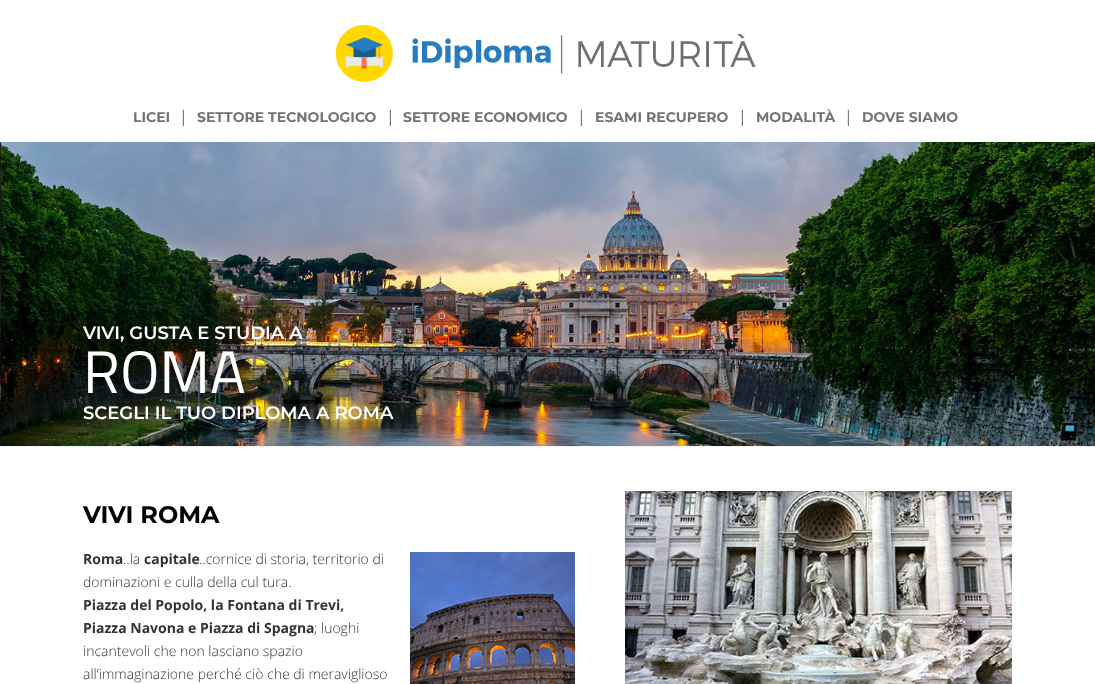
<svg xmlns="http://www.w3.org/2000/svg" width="1095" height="684">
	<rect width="100%" height="100%" fill="#FFFFFF" />
	<image x="336" y="25" width="420" height="57" href="assets/img1.png" />
	<text x="133" y="122" font-family="Montserrat" font-size="14" font-weight="700" fill="#737373">LICEI</text>
	<text x="179" y="122" font-family="Open Sans" font-size="16" fill="#737373">|</text>
	<text x="197" y="122" font-family="Montserrat" font-size="14" font-weight="700" fill="#737373">SETTORE TECNOLOGICO</text>
	<text x="386" y="122" font-family="Open Sans" font-size="16" fill="#737373">|</text>
	<text x="403" y="122" font-family="Montserrat" font-size="14" font-weight="700" fill="#737373">SETTORE ECONOMICO</text>
	<text x="577" y="122" font-family="Open Sans" font-size="16" fill="#737373">|</text>
	<text x="595" y="122" font-family="Montserrat" font-size="14" font-weight="700" fill="#737373">ESAMI RECUPERO</text>
	<text x="738" y="122" font-family="Open Sans" font-size="16" fill="#737373">|</text>
	<text x="756" y="122" font-family="Montserrat" font-size="14" font-weight="700" fill="#737373">MODALITÀ</text>
	<text x="844" y="122" font-family="Open Sans" font-size="16" fill="#737373">|</text>
	<text x="862" y="122" font-family="Montserrat" font-size="14" font-weight="700" fill="#737373">DOVE SIAMO</text>
	<rect x="0" y="446" width="1095" height="1" fill="#F1F1F1" />
	<image x="0" y="142" width="1095" height="304" href="assets/img2.png" />
	<text x="83" y="339" font-family="Montserrat" font-size="18" font-weight="600" fill="#FFFFFF">VIVI, GUSTA E STUDIA A</text>
	<text x="83" y="393" font-family="Titillium Web" font-size="60" fill="#FFFFFF">ROMA</text>
	<text x="83" y="419" font-family="Montserrat" font-size="18" font-weight="600" fill="#FFFFFF">SCEGLI IL TUO DIPLOMA A ROMA</text>
	<text x="83" y="523" font-family="Montserrat" font-size="24" font-weight="700" fill="#000000">VIVI ROMA</text>
	<text x="83" y="564" font-family="Open Sans" font-size="14" font-weight="700" fill="#333333">Roma</text>
	<image x="410" y="552" width="165" height="132" href="assets/img3.png" />
	<text x="123" y="564" font-family="Open Sans" font-size="14" font-weight="300" fill="#333333">..la</text>
	<text x="144" y="564" font-family="Open Sans" font-size="14" font-weight="700" fill="#333333">capitale</text>
	<g font-family="Open Sans" font-size="14" font-weight="300" fill="#333333">
		<text x="199" y="564">..cornice di storia, territorio di</text>
		<text x="83" y="587">dominazioni e culla della cul tura.</text>
	</g>
	<g font-family="Open Sans" font-size="14" font-weight="700" fill="#333333">
		<text x="83" y="610">Piazza del Popolo, la Fontana di Trevi,</text>
		<text x="83" y="633">Piazza Navona e Piazza di Spagna</text>
	</g>
	<g font-family="Open Sans" font-size="14" font-weight="300" fill="#333333">
		<text x="314" y="633">; luoghi</text>
		<text x="83" y="656">incantevoli che non lasciano spazio</text>
		<text x="83" y="679">all’immaginazione perché ciò che di meraviglioso</text>
	</g>
	<image x="625" y="491" width="387" height="193" href="assets/img4.png" />
</svg>
